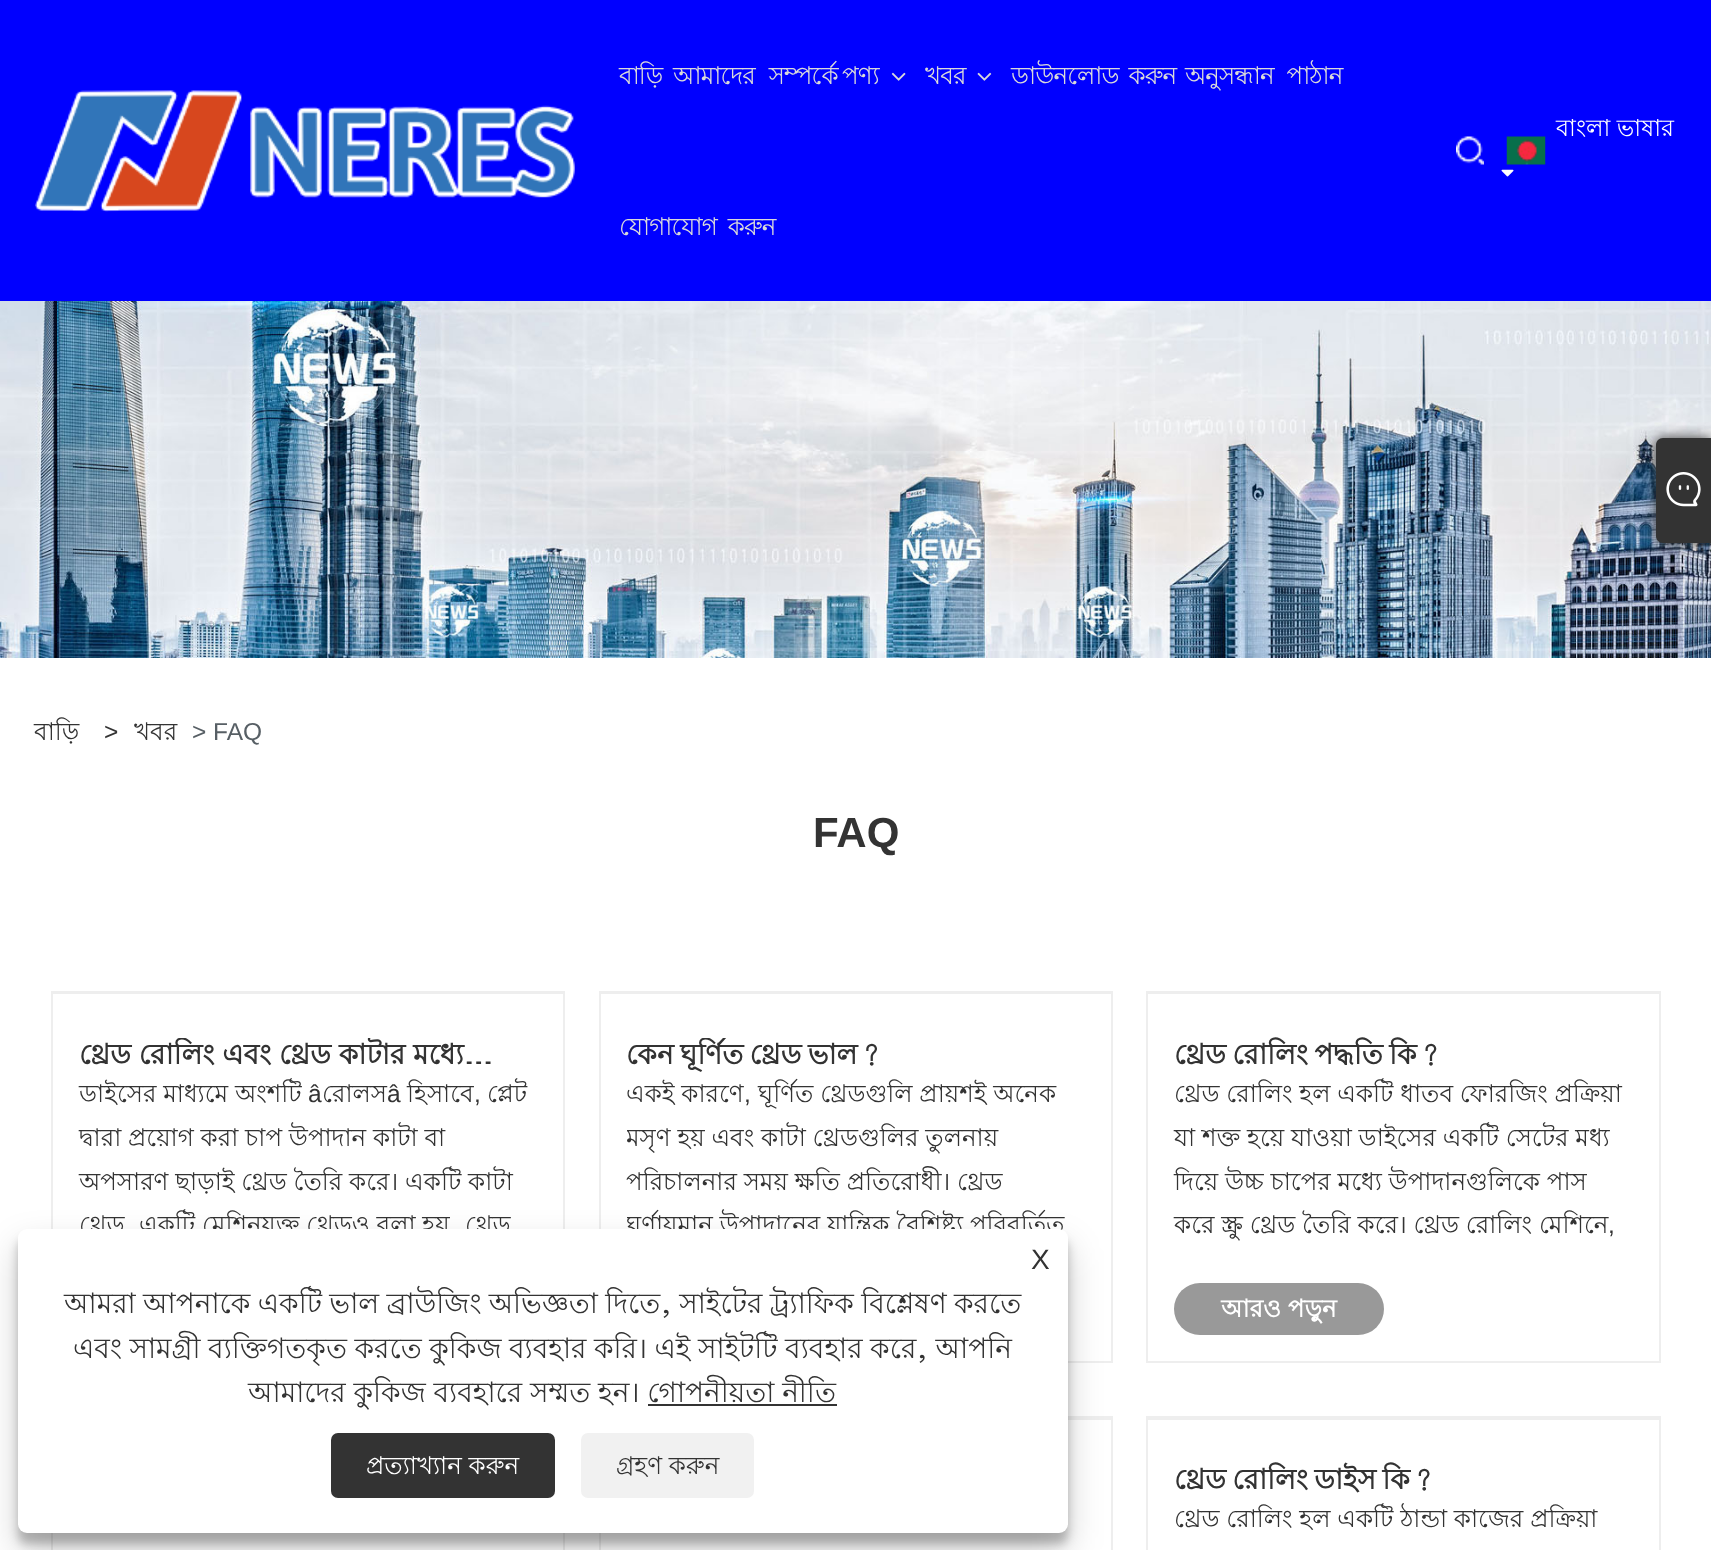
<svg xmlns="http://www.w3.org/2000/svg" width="1711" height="1550">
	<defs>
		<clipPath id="clip1"><rect x="79" y="1038" width="458" height="35" /></clipPath>
		<clipPath id="clip2"><rect x="627" y="1038" width="458" height="35" /></clipPath>
		<clipPath id="clip3"><rect x="627" y="1073" width="458" height="175" /></clipPath>
	</defs>
	<rect width="100%" height="100%" fill="#FFFFFF" />
	<rect x="0" y="0" width="1711" height="301" fill="#0000FF" />
	<image x="35" y="90" width="540" height="122" href="assets/img1.png" />
	<g font-family="Lohit Bengali" font-size="24.5" letter-spacing="-0.9" fill="#DADADA">
		<text x="619" y="84">বাড়ি</text>
		<text x="673" y="84" word-spacing="8">আমাদের সম্পর্কে</text>
		<text x="842" y="84">পণ্য</text>
	</g>
	<image x="891" y="72" width="15" height="9" href="assets/img2.png" />
	<text x="925" y="84" font-family="Lohit Bengali" font-size="24.5" letter-spacing="-0.9" fill="#DADADA">খবর</text>
	<image x="977" y="72" width="15" height="9" href="assets/img3.png" />
	<g font-family="Lohit Bengali" font-size="24.5" letter-spacing="-0.9" fill="#DADADA">
		<text x="1011" y="84" word-spacing="4">ডাউনলোড করুন</text>
		<text x="1185" y="84" word-spacing="7">অনুসন্ধান পাঠান</text>
		<text x="619" y="235" word-spacing="5">যোগাযোগ করুন</text>
	</g>
	<image x="1456" y="136" width="28" height="29" href="assets/img4.png" />
	<text x="1556" y="136" font-family="Lohit Bengali" font-size="23.5" fill="#FFFFFF">বাংলা ভাষার</text>
	<image x="1506" y="136" width="40" height="29" href="assets/img5.png" />
	<image x="1501" y="169" width="13" height="8" href="assets/img6.png" />
	<image x="0" y="301" width="1711" height="357" href="assets/img7.png" />
	<text x="34" y="740" font-family="Lohit Bengali" font-size="24.5" fill="#333333">বাড়ি</text>
	<text x="104" y="740" font-family="Liberation Sans" font-size="24.5" fill="#333333">&gt;</text>
	<text x="134" y="740" font-family="Lohit Bengali" font-size="24.5" fill="#333333">খবর</text>
	<text x="192" y="740" font-family="Liberation Sans" font-size="24.5" fill="#575F65">&gt; FAQ</text>
	<text x="813" y="847" font-family="Liberation Sans" font-size="42" font-weight="700" fill="#333333">FAQ</text>
	<rect x="52" y="992" width="512" height="370" fill="none" stroke="#EEEEEE" stroke-width="2" />
	<rect x="53" y="993" width="511" height="1" fill="#EEEEEE" />
	<g clip-path="url(#clip1)">
		<text x="79" y="1064" font-family="Lohit Bengali" font-size="28" font-weight="700" fill="#333333">থ্রেড রোলিং এবং থ্রেড কাটার মধ্যে…</text>
	</g>
	<text x="79" y="1102" font-family="Lohit Bengali" font-size="24.5" fill="#333333">ডাইসের মাধ্যমে অংশটি</text>
	<text x="308" y="1102" font-family="Liberation Sans" font-size="24.5" fill="#333333">â</text>
	<text x="322" y="1102" font-family="Lohit Bengali" font-size="24.5" fill="#333333">রোলস</text>
	<text x="387" y="1102" font-family="Liberation Sans" font-size="24.5" fill="#333333">â</text>
	<text x="407" y="1102" font-family="Lohit Bengali" font-size="24.5" fill="#333333">হিসাবে</text>
	<text x="474" y="1102" font-family="Liberation Sans" font-size="24.5" fill="#333333">,</text>
	<g font-family="Lohit Bengali" font-size="24.5" fill="#333333">
		<text x="487" y="1102">প্লেট</text>
		<text x="79" y="1146">দ্বারা প্রয়োগ করা চাপ উপাদান কাটা বা</text>
		<text x="79" y="1190">অপসারণ ছাড়াই থ্রেড তৈরি করে। একটি কাটা</text>
		<text x="79" y="1233">থ্রেড</text>
		<text x="139" y="1233">একটি মেশিনযুক্ত থ্রেডও বলা হয়</text>
		<text x="465" y="1233">থ্রেড</text>
	</g>
	<rect x="600" y="992" width="512" height="370" fill="none" stroke="#EEEEEE" stroke-width="2" />
	<rect x="600" y="993" width="511" height="1" fill="#EEEEEE" />
	<g clip-path="url(#clip2)">
		<text x="626" y="1064" word-spacing="-1.5" font-family="Lohit Bengali" font-size="28" font-weight="700" fill="#333333">কেন ঘূর্ণিত থ্রেড ভাল?</text>
	</g>
	<text x="626" y="1102" font-family="Lohit Bengali" font-size="24.5" fill="#333333">একই কারণে</text>
	<text x="744" y="1102" font-family="Liberation Sans" font-size="24.5" fill="#333333">,</text>
	<text x="758" y="1102" font-family="Lohit Bengali" font-size="24.5" fill="#333333">ঘূর্ণিত থ্রেডগুলি প্রায়শই অনেক</text>
	<g clip-path="url(#clip3)">
		<text x="626" y="1146" font-family="Lohit Bengali" font-size="24.5" fill="#333333">মসৃণ হয় এবং কাটা থ্রেডগুলির তুলনায়</text>
	</g>
	<text x="626" y="1190" font-family="Lohit Bengali" font-size="24.5" fill="#333333">পরিচালনার সময় ক্ষতি প্রতিরোধী। থ্রেড</text>
	<g clip-path="url(#clip3)">
		<text x="626" y="1233" font-family="Lohit Bengali" font-size="24.5" fill="#333333">ঘূর্ণায়মান উপাদানের যান্ত্রিক বৈশিষ্ট্য পরিবর্তিত</text>
	</g>
	<rect x="1147" y="992" width="513" height="370" fill="none" stroke="#EEEEEE" stroke-width="2" />
	<rect x="1148" y="993" width="511" height="1" fill="#EEEEEE" />
	<text x="1174" y="1064" word-spacing="-1.5" font-family="Lohit Bengali" font-size="28" font-weight="700" fill="#333333">থ্রেড রোলিং পদ্ধতি কি?</text>
	<g font-family="Lohit Bengali" font-size="24.5" fill="#333333">
		<text x="1174" y="1102">থ্রেড রোলিং হল একটি ধাতব ফোরজিং প্রক্রিয়া</text>
		<text x="1174" y="1146">যা শক্ত হয়ে যাওয়া ডাইসের একটি সেটের মধ্য</text>
		<text x="1174" y="1190">দিয়ে উচ্চ চাপের মধ্যে উপাদানগুলিকে পাস</text>
		<text x="1174" y="1233">করে স্ক্রু থ্রেড তৈরি করে। থ্রেড রোলিং মেশিনে</text>
	</g>
	<text x="1608" y="1233" font-family="Liberation Sans" font-size="24.5" fill="#333333">,</text>
	<rect x="1174" y="1283" width="210" height="52" rx="26" fill="#999999" />
	<text x="1221" y="1317" font-family="Lohit Bengali" font-size="24.5" font-weight="700" fill="#FFFFFF">আরও পড়ুন</text>
	<rect x="52" y="1417" width="512" height="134" fill="none" stroke="#EEEEEE" stroke-width="2" />
	<rect x="600" y="1417" width="512" height="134" fill="none" stroke="#EEEEEE" stroke-width="2" />
	<rect x="1068" y="1418" width="43" height="2" fill="#EEEEEE" />
	<rect x="1147" y="1417" width="513" height="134" fill="none" stroke="#EEEEEE" stroke-width="2" />
	<rect x="1148" y="1418" width="511" height="2" fill="#EEEEEE" />
	<text x="1174" y="1489" word-spacing="-1.5" font-family="Lohit Bengali" font-size="28" font-weight="700" fill="#333333">থ্রেড রোলিং ডাইস কি?</text>
	<text x="1174" y="1527" font-family="Lohit Bengali" font-size="24.5" fill="#333333">থ্রেড রোলিং হল একটি ঠান্ডা কাজের প্রক্রিয়া</text>
	<rect x="1656" y="438" width="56" height="105" rx="7" fill="#333333" filter="blur(7px)" />
	<path d="M1663 438H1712V543H1663C1659 543 1656 540 1656 536V445C1656 441 1659 438 1663 438Z" fill="#333333" />
	<image x="1666" y="472" width="35" height="35" href="assets/img8.png" />
	<rect x="18" y="1239" width="1050" height="305" rx="9" fill="#000000" fill-opacity="0.23" filter="blur(5px)" />
	<rect x="18" y="1246" width="1050" height="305" rx="9" fill="#000000" fill-opacity="0.19" filter="blur(17.5px)" />
	<rect x="18" y="1229" width="1050" height="304" rx="9" fill="#FFFFFF" />
	<text x="1031" y="1269" font-family="Liberation Sans" font-size="28" fill="#333333">X</text>
	<g font-family="Lohit Bengali" font-size="28" fill="#333333">
		<text x="64" y="1313" word-spacing="-0.4">আমরা আপনাকে একটি ভাল ব্রাউজিং অভিজ্ঞতা দিতে, সাইটের ট্র্যাফিক বিশ্লেষণ করতে</text>
		<text x="73" y="1358" word-spacing="-0.25">এবং সামগ্রী ব্যক্তিগতকৃত করতে কুকিজ ব্যবহার করি। এই সাইটটি ব্যবহার করে, আপনি</text>
		<text x="248" y="1402">আমাদের কুকিজ ব্যবহারে সম্মত হন। গোপনীয়তা নীতি</text>
	</g>
	<rect x="648" y="1404" width="189" height="2" fill="#333333" />
	<rect x="331" y="1433" width="224" height="65" rx="7" fill="#333333" />
	<text x="366" y="1474" font-family="Lohit Bengali" font-size="24.5" fill="#FFFFFF">প্রত্যাখ্যান করুন</text>
	<rect x="581" y="1433" width="173" height="65" rx="7" fill="#F1F1F1" />
	<text x="616" y="1474" font-family="Lohit Bengali" font-size="24.5" fill="#333333">গ্রহণ করুন</text>
</svg>
